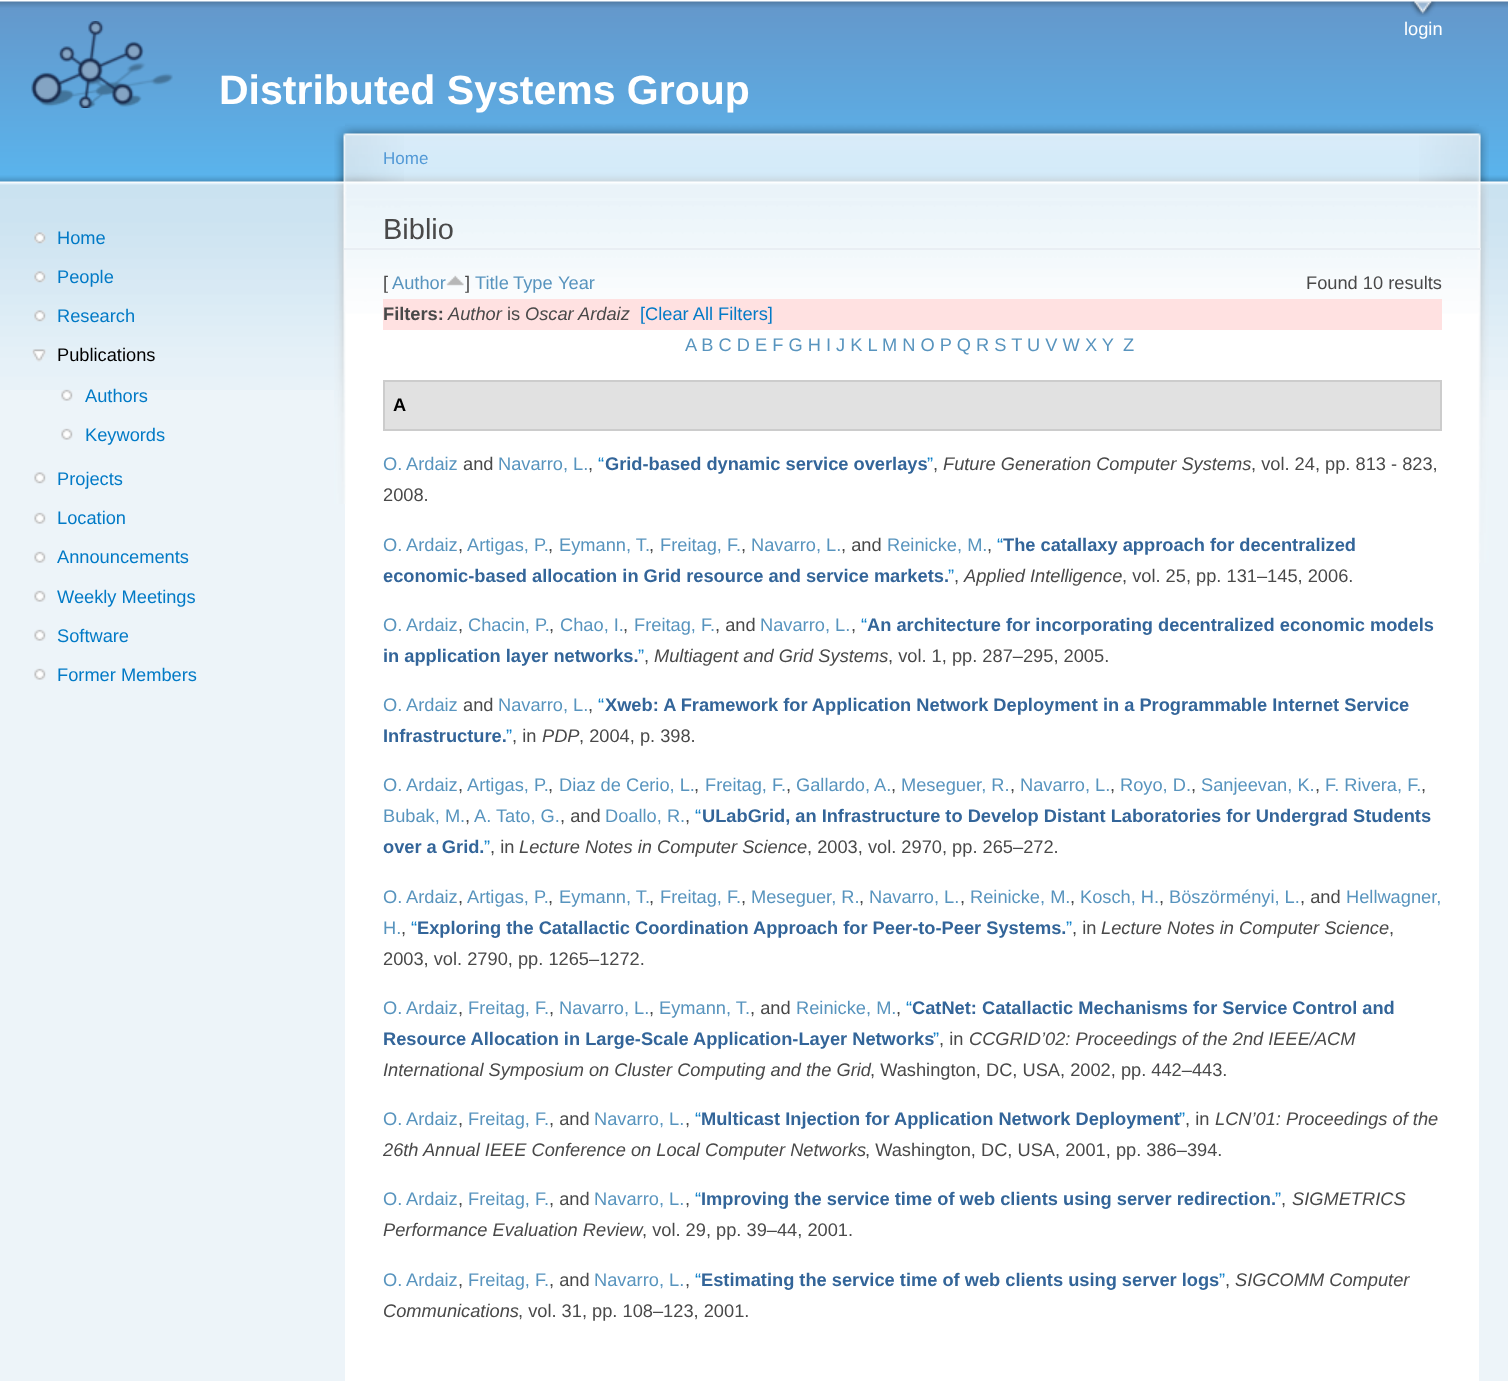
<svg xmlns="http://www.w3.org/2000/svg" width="1508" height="1381">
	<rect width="100%" height="100%" fill="#EDF4F9" />
	<image x="0" y="0" width="1508" height="390" href="assets/img1.png" />
	<image x="1410" y="1" width="26" height="16" href="assets/img2.png" />
	<text x="1404" y="35" font-family="Liberation Sans" font-size="18.25" fill="#FFFFFF">login</text>
	<image x="31" y="21" width="142" height="87" href="assets/img3.png" />
	<text x="219" y="104" font-family="Liberation Sans" font-size="41" font-weight="700" fill="#FFFFFF">Distributed Systems Group</text>
	<image x="34" y="232" width="12" height="12" href="assets/img4.png" />
	<text x="57" y="244" font-family="Liberation Sans" font-size="18.25" fill="#027AC6">Home</text>
	<image x="34" y="271" width="12" height="12" href="assets/img5.png" />
	<text x="57" y="283" font-family="Liberation Sans" font-size="18.25" fill="#027AC6">People</text>
	<image x="34" y="310" width="12" height="12" href="assets/img6.png" />
	<text x="57" y="322" font-family="Liberation Sans" font-size="18.25" fill="#027AC6">Research</text>
	<image x="32" y="349" width="14" height="13" href="assets/img7.png" />
	<text x="57" y="361" font-family="Liberation Sans" font-size="18.25" fill="#000000">Publications</text>
	<image x="61" y="389" width="12" height="12" href="assets/img8.png" />
	<text x="85" y="402" font-family="Liberation Sans" font-size="18.25" fill="#027AC6">Authors</text>
	<image x="61" y="428" width="12" height="12" href="assets/img9.png" />
	<text x="85" y="441" font-family="Liberation Sans" font-size="18.25" fill="#027AC6">Keywords</text>
	<image x="34" y="472" width="12" height="12" href="assets/img10.png" />
	<text x="57" y="485" font-family="Liberation Sans" font-size="18.25" fill="#027AC6">Projects</text>
	<image x="34" y="512" width="12" height="12" href="assets/img9.png" />
	<text x="57" y="524" font-family="Liberation Sans" font-size="18.25" fill="#027AC6">Location</text>
	<image x="34" y="551" width="12" height="12" href="assets/img9.png" />
	<text x="57" y="563" font-family="Liberation Sans" font-size="18.25" fill="#027AC6">Announcements</text>
	<image x="34" y="590" width="12" height="12" href="assets/img9.png" />
	<text x="57" y="603" font-family="Liberation Sans" font-size="18.25" fill="#027AC6">Weekly Meetings</text>
	<image x="34" y="629" width="12" height="12" href="assets/img9.png" />
	<text x="57" y="642" font-family="Liberation Sans" font-size="18.25" fill="#027AC6">Software</text>
	<image x="34" y="668" width="12" height="12" href="assets/img9.png" />
	<text x="57" y="681" font-family="Liberation Sans" font-size="18.25" fill="#027AC6">Former Members</text>
	<rect x="345" y="330" width="1134" height="1051" fill="#FFFFFF" />
	<image x="345" y="120" width="1134" height="179" href="assets/img11.png" />
	<image x="1419" y="126" width="70" height="437" href="assets/img12.png" />
	<image x="334" y="126" width="70" height="378" href="assets/img13.png" />
	<text x="383" y="164" font-family="Liberation Sans" font-size="17" fill="#5299D6">Home</text>
	<rect x="344" y="248" width="1137" height="2" fill="#E9EEF3" />
	<text x="383" y="239" font-family="Liberation Sans" font-size="29" fill="#494949">Biblio</text>
	<text x="383" y="289" font-family="Liberation Sans" font-size="18.25" fill="#494949">[</text>
	<text x="392" y="289" font-family="Liberation Sans" font-size="18.25" fill="#5894BE">Author</text>
	<image x="446" y="275" width="18" height="11" href="assets/img14.png" />
	<text x="465" y="289" font-family="Liberation Sans" font-size="18.25" fill="#494949">]</text>
	<g font-family="Liberation Sans" font-size="18.25" fill="#5894BE">
		<text x="475" y="289">Title</text>
		<text x="513" y="289">Type</text>
		<text x="558" y="289">Year</text>
	</g>
	<text x="1306" y="289" font-family="Liberation Sans" font-size="18.25" fill="#494949">Found 10 results</text>
	<rect x="383" y="299" width="1059" height="31" fill="#FFE1E1" />
	<text x="383" y="320" font-family="Liberation Sans" font-size="18.25" font-weight="700" fill="#494949">Filters:</text>
	<text x="448" y="320" font-family="Liberation Sans" font-size="18.25" font-style="italic" fill="#494949">Author</text>
	<text x="507" y="320" font-family="Liberation Sans" font-size="18.25" fill="#494949">is</text>
	<text x="525" y="320" font-family="Liberation Sans" font-size="18.25" font-style="italic" fill="#494949">Oscar Ardaiz</text>
	<text x="640" y="320" font-family="Liberation Sans" font-size="18.25" fill="#027AC6">[Clear All Filters]</text>
	<text x="685" y="351" font-family="Liberation Sans" font-size="18.25" fill="#5894BE">A B C D E F G H I J K L M N O P Q R S T U V W X Y</text>
	<text x="1123" y="351" font-family="Liberation Sans" font-size="18.25" fill="#5894BE">Z</text>
	<rect x="384" y="381" width="1057" height="49" fill="#E1E1E1" stroke="#CCCCCC" stroke-width="2" />
	<text x="393" y="411" font-family="Liberation Sans" font-size="18.25" font-weight="700" fill="#000000">A</text>
	<g font-family="Liberation Sans" font-size="18.25" fill="#5894BE">
		<text x="383" y="470">O.</text>
		<text x="406" y="470">Ardaiz</text>
	</g>
	<text x="463" y="470" font-family="Liberation Sans" font-size="18.25" fill="#494949">and</text>
	<text x="498" y="470" font-family="Liberation Sans" font-size="18.25" fill="#5894BE">Navarro, L.</text>
	<text x="598" y="470" font-family="Liberation Sans" font-size="18.25" fill="#027AC6">“</text>
	<text x="605" y="470" font-family="Liberation Sans" font-size="18.25" font-weight="700" fill="#336599">Grid-based dynamic service overlays</text>
	<text x="927" y="470" font-family="Liberation Sans" font-size="18.25" fill="#027AC6">”</text>
	<text x="943" y="470" font-family="Liberation Sans" font-size="18.25" font-style="italic" fill="#494949">Future Generation Computer Systems</text>
	<g font-family="Liberation Sans" font-size="18.25" fill="#494949">
		<text x="1251" y="470">, vol. 24, pp. 813 - 823,</text>
		<text x="588" y="470">,</text>
		<text x="933" y="470">,</text>
		<text x="383" y="501">2008.</text>
	</g>
	<g font-family="Liberation Sans" font-size="18.25" fill="#5894BE">
		<text x="383" y="551">O.</text>
		<text x="406" y="551">Ardaiz</text>
		<text x="467" y="551">Artigas, P.</text>
		<text x="559" y="551">Eymann, T.</text>
		<text x="660" y="551">Freitag, F.</text>
		<text x="751" y="551">Navarro, L.</text>
	</g>
	<text x="841" y="551" font-family="Liberation Sans" font-size="18.25" fill="#494949">, and</text>
	<text x="887" y="551" font-family="Liberation Sans" font-size="18.25" fill="#5894BE">Reinicke, M.</text>
	<text x="997" y="551" font-family="Liberation Sans" font-size="18.25" fill="#027AC6">“</text>
	<text x="1003" y="551" font-family="Liberation Sans" font-size="18.25" font-weight="700" fill="#336599">The catallaxy approach for decentralized</text>
	<g font-family="Liberation Sans" font-size="18.25" fill="#494949">
		<text x="458" y="551">,</text>
		<text x="548" y="551">,</text>
		<text x="649" y="551">,</text>
		<text x="741" y="551">,</text>
		<text x="987" y="551">,</text>
	</g>
	<text x="383" y="582" font-family="Liberation Sans" font-size="18.25" font-weight="700" fill="#336599">economic-based allocation in Grid resource and service markets.</text>
	<text x="948" y="582" font-family="Liberation Sans" font-size="18.25" fill="#027AC6">”</text>
	<text x="964" y="582" font-family="Liberation Sans" font-size="18.25" font-style="italic" fill="#494949">Applied Intelligence</text>
	<g font-family="Liberation Sans" font-size="18.25" fill="#494949">
		<text x="1122" y="582">, vol. 25, pp. 131–145, 2006.</text>
		<text x="954" y="582">,</text>
	</g>
	<g font-family="Liberation Sans" font-size="18.25" fill="#5894BE">
		<text x="383" y="631">O.</text>
		<text x="406" y="631">Ardaiz</text>
		<text x="468" y="631">Chacin, P.</text>
		<text x="560" y="631">Chao, I.</text>
		<text x="634" y="631">Freitag, F.</text>
	</g>
	<text x="715" y="631" font-family="Liberation Sans" font-size="18.25" fill="#494949">, and</text>
	<text x="760" y="631" font-family="Liberation Sans" font-size="18.25" fill="#5894BE">Navarro, L.</text>
	<text x="861" y="631" font-family="Liberation Sans" font-size="18.25" fill="#027AC6">“</text>
	<text x="867" y="631" font-family="Liberation Sans" font-size="18.25" font-weight="700" fill="#336599">An architecture for incorporating decentralized economic models</text>
	<g font-family="Liberation Sans" font-size="18.25" fill="#494949">
		<text x="458" y="631">,</text>
		<text x="549" y="631">,</text>
		<text x="623" y="631">,</text>
		<text x="851" y="631">,</text>
	</g>
	<text x="383" y="662" font-family="Liberation Sans" font-size="18.25" font-weight="700" fill="#336599">in application layer networks.</text>
	<text x="638" y="662" font-family="Liberation Sans" font-size="18.25" fill="#027AC6">”</text>
	<text x="654" y="662" font-family="Liberation Sans" font-size="18.25" font-style="italic" fill="#494949">Multiagent and Grid Systems</text>
	<g font-family="Liberation Sans" font-size="18.25" fill="#494949">
		<text x="888" y="662">, vol. 1, pp. 287–295, 2005.</text>
		<text x="644" y="662">,</text>
	</g>
	<g font-family="Liberation Sans" font-size="18.25" fill="#5894BE">
		<text x="383" y="711">O.</text>
		<text x="406" y="711">Ardaiz</text>
	</g>
	<text x="463" y="711" font-family="Liberation Sans" font-size="18.25" fill="#494949">and</text>
	<text x="498" y="711" font-family="Liberation Sans" font-size="18.25" fill="#5894BE">Navarro, L.</text>
	<text x="598" y="711" font-family="Liberation Sans" font-size="18.25" fill="#027AC6">“</text>
	<text x="605" y="711" font-family="Liberation Sans" font-size="18.25" font-weight="700" fill="#336599">Xweb: A Framework for Application Network Deployment in a Programmable Internet Service</text>
	<text x="588" y="711" font-family="Liberation Sans" font-size="18.25" fill="#494949">,</text>
	<text x="383" y="742" font-family="Liberation Sans" font-size="18.25" font-weight="700" fill="#336599">Infrastructure.</text>
	<text x="506" y="742" font-family="Liberation Sans" font-size="18.25" fill="#027AC6">”</text>
	<text x="512" y="742" font-family="Liberation Sans" font-size="18.25" fill="#494949">, in</text>
	<text x="542" y="742" font-family="Liberation Sans" font-size="18.25" font-style="italic" fill="#494949">PDP</text>
	<text x="579" y="742" font-family="Liberation Sans" font-size="18.25" fill="#494949">, 2004, p. 398.</text>
	<g font-family="Liberation Sans" font-size="18.25" fill="#5894BE">
		<text x="383" y="791">O.</text>
		<text x="406" y="791">Ardaiz</text>
	</g>
	<text x="458" y="791" font-family="Liberation Sans" font-size="18.25" fill="#494949">,</text>
	<text x="467" y="791" font-family="Liberation Sans" font-size="18.25" fill="#5894BE">Artigas, P.</text>
	<text x="548" y="791" font-family="Liberation Sans" font-size="18.25" fill="#494949">,</text>
	<text x="559" y="791" font-family="Liberation Sans" font-size="18.25" fill="#5894BE">Diaz de Cerio, L.</text>
	<text x="694" y="791" font-family="Liberation Sans" font-size="18.25" fill="#494949">,</text>
	<text x="705" y="791" font-family="Liberation Sans" font-size="18.25" fill="#5894BE">Freitag, F.</text>
	<text x="786" y="791" font-family="Liberation Sans" font-size="18.25" fill="#494949">,</text>
	<text x="796" y="791" font-family="Liberation Sans" font-size="18.25" fill="#5894BE">Gallardo, A.</text>
	<text x="891" y="791" font-family="Liberation Sans" font-size="18.25" fill="#494949">,</text>
	<text x="901" y="791" font-family="Liberation Sans" font-size="18.25" fill="#5894BE">Meseguer, R.</text>
	<text x="1010" y="791" font-family="Liberation Sans" font-size="18.25" fill="#494949">,</text>
	<text x="1020" y="791" font-family="Liberation Sans" font-size="18.25" fill="#5894BE">Navarro, L.</text>
	<text x="1110" y="791" font-family="Liberation Sans" font-size="18.25" fill="#494949">,</text>
	<text x="1120" y="791" font-family="Liberation Sans" font-size="18.25" fill="#5894BE">Royo, D.</text>
	<text x="1191" y="791" font-family="Liberation Sans" font-size="18.25" fill="#494949">,</text>
	<text x="1201" y="791" font-family="Liberation Sans" font-size="18.25" fill="#5894BE">Sanjeevan, K.</text>
	<text x="1315" y="791" font-family="Liberation Sans" font-size="18.25" fill="#494949">,</text>
	<text x="1325" y="791" font-family="Liberation Sans" font-size="18.25" fill="#5894BE">F. Rivera, F.</text>
	<text x="1421" y="791" font-family="Liberation Sans" font-size="18.25" fill="#494949">,</text>
	<g font-family="Liberation Sans" font-size="18.25" fill="#5894BE">
		<text x="383" y="822">Bubak, M.</text>
		<text x="474" y="822">A. Tato, G.</text>
	</g>
	<text x="560" y="822" font-family="Liberation Sans" font-size="18.25" fill="#494949">, and</text>
	<text x="605" y="822" font-family="Liberation Sans" font-size="18.25" fill="#5894BE">Doallo, R.</text>
	<text x="695" y="822" font-family="Liberation Sans" font-size="18.25" fill="#027AC6">“</text>
	<text x="702" y="822" font-family="Liberation Sans" font-size="18.25" font-weight="700" fill="#336599">ULabGrid, an Infrastructure to Develop Distant Laboratories for Undergrad Students</text>
	<g font-family="Liberation Sans" font-size="18.25" fill="#494949">
		<text x="465" y="822">,</text>
		<text x="685" y="822">,</text>
	</g>
	<text x="383" y="853" font-family="Liberation Sans" font-size="18.25" font-weight="700" fill="#336599">over a Grid.</text>
	<text x="484" y="853" font-family="Liberation Sans" font-size="18.25" fill="#027AC6">”</text>
	<text x="490" y="853" font-family="Liberation Sans" font-size="18.25" fill="#494949">, in</text>
	<text x="519" y="853" font-family="Liberation Sans" font-size="18.25" font-style="italic" fill="#494949">Lecture Notes in Computer Science</text>
	<text x="807" y="853" font-family="Liberation Sans" font-size="18.25" fill="#494949">, 2003, vol. 2970, pp. 265–272.</text>
	<g font-family="Liberation Sans" font-size="18.25" fill="#5894BE">
		<text x="383" y="903">O.</text>
		<text x="406" y="903">Ardaiz</text>
	</g>
	<text x="458" y="903" font-family="Liberation Sans" font-size="18.25" fill="#494949">,</text>
	<text x="467" y="903" font-family="Liberation Sans" font-size="18.25" fill="#5894BE">Artigas, P.</text>
	<text x="548" y="903" font-family="Liberation Sans" font-size="18.25" fill="#494949">,</text>
	<text x="559" y="903" font-family="Liberation Sans" font-size="18.25" fill="#5894BE">Eymann, T.</text>
	<text x="649" y="903" font-family="Liberation Sans" font-size="18.25" fill="#494949">,</text>
	<text x="660" y="903" font-family="Liberation Sans" font-size="18.25" fill="#5894BE">Freitag, F.</text>
	<text x="741" y="903" font-family="Liberation Sans" font-size="18.25" fill="#494949">,</text>
	<text x="751" y="903" font-family="Liberation Sans" font-size="18.25" fill="#5894BE">Meseguer, R.</text>
	<text x="859" y="903" font-family="Liberation Sans" font-size="18.25" fill="#494949">,</text>
	<text x="869" y="903" font-family="Liberation Sans" font-size="18.25" fill="#5894BE">Navarro, L.</text>
	<text x="960" y="903" font-family="Liberation Sans" font-size="18.25" fill="#494949">,</text>
	<text x="970" y="903" font-family="Liberation Sans" font-size="18.25" fill="#5894BE">Reinicke, M.</text>
	<text x="1070" y="903" font-family="Liberation Sans" font-size="18.25" fill="#494949">,</text>
	<text x="1080" y="903" font-family="Liberation Sans" font-size="18.25" fill="#5894BE">Kosch, H.</text>
	<text x="1159" y="903" font-family="Liberation Sans" font-size="18.25" fill="#494949">,</text>
	<text x="1169" y="903" font-family="Liberation Sans" font-size="18.25" fill="#5894BE">Böszörményi, L.</text>
	<text x="1300" y="903" font-family="Liberation Sans" font-size="18.25" fill="#494949">, and</text>
	<g font-family="Liberation Sans" font-size="18.25" fill="#5894BE">
		<text x="1346" y="903">Hellwagner,</text>
		<text x="383" y="934">H.</text>
	</g>
	<text x="411" y="934" font-family="Liberation Sans" font-size="18.25" fill="#027AC6">“</text>
	<text x="417" y="934" font-family="Liberation Sans" font-size="18.25" font-weight="700" fill="#336599">Exploring the Catallactic Coordination Approach for Peer-to-Peer Systems.</text>
	<text x="1066" y="934" font-family="Liberation Sans" font-size="18.25" fill="#027AC6">”</text>
	<text x="1072" y="934" font-family="Liberation Sans" font-size="18.25" fill="#494949">, in</text>
	<text x="1101" y="934" font-family="Liberation Sans" font-size="18.25" font-style="italic" fill="#494949">Lecture Notes in Computer Science</text>
	<g font-family="Liberation Sans" font-size="18.25" fill="#494949">
		<text x="401" y="934">,</text>
		<text x="1389" y="934">,</text>
		<text x="383" y="965">2003, vol. 2790, pp. 1265–1272.</text>
	</g>
	<g font-family="Liberation Sans" font-size="18.25" fill="#5894BE">
		<text x="383" y="1014">O.</text>
		<text x="406" y="1014">Ardaiz</text>
		<text x="468" y="1014">Freitag, F.</text>
		<text x="559" y="1014">Navarro, L.</text>
		<text x="659" y="1014">Eymann, T.</text>
	</g>
	<text x="750" y="1014" font-family="Liberation Sans" font-size="18.25" fill="#494949">, and</text>
	<text x="796" y="1014" font-family="Liberation Sans" font-size="18.25" fill="#5894BE">Reinicke, M.</text>
	<text x="906" y="1014" font-family="Liberation Sans" font-size="18.25" fill="#027AC6">“</text>
	<text x="912" y="1014" font-family="Liberation Sans" font-size="18.25" font-weight="700" fill="#336599">CatNet: Catallactic Mechanisms for Service Control and</text>
	<g font-family="Liberation Sans" font-size="18.25" fill="#494949">
		<text x="458" y="1014">,</text>
		<text x="549" y="1014">,</text>
		<text x="649" y="1014">,</text>
		<text x="896" y="1014">,</text>
	</g>
	<text x="383" y="1045" font-family="Liberation Sans" font-size="18.25" font-weight="700" fill="#336599">Resource Allocation in Large-Scale Application-Layer Networks</text>
	<text x="933" y="1045" font-family="Liberation Sans" font-size="18.25" fill="#027AC6">”</text>
	<text x="939" y="1045" font-family="Liberation Sans" font-size="18.25" fill="#494949">, in</text>
	<g font-family="Liberation Sans" font-size="18.25" font-style="italic" fill="#494949">
		<text x="969" y="1045">CCGRID’02: Proceedings of the 2nd IEEE/ACM</text>
		<text x="383" y="1076">International Symposium on Cluster Computing and the Grid</text>
	</g>
	<text x="870" y="1076" font-family="Liberation Sans" font-size="18.25" fill="#494949">, Washington, DC, USA, 2002, pp. 442–443.</text>
	<g font-family="Liberation Sans" font-size="18.25" fill="#5894BE">
		<text x="383" y="1125">O.</text>
		<text x="406" y="1125">Ardaiz</text>
		<text x="468" y="1125">Freitag, F.</text>
	</g>
	<text x="549" y="1125" font-family="Liberation Sans" font-size="18.25" fill="#494949">, and</text>
	<text x="594" y="1125" font-family="Liberation Sans" font-size="18.25" fill="#5894BE">Navarro, L.</text>
	<text x="695" y="1125" font-family="Liberation Sans" font-size="18.25" fill="#027AC6">“</text>
	<text x="701" y="1125" font-family="Liberation Sans" font-size="18.25" font-weight="700" fill="#336599">Multicast Injection for Application Network Deployment</text>
	<text x="1179" y="1125" font-family="Liberation Sans" font-size="18.25" fill="#027AC6">”</text>
	<text x="1185" y="1125" font-family="Liberation Sans" font-size="18.25" fill="#494949">, in</text>
	<text x="1215" y="1125" font-family="Liberation Sans" font-size="18.25" font-style="italic" fill="#494949">LCN’01: Proceedings of the</text>
	<g font-family="Liberation Sans" font-size="18.25" fill="#494949">
		<text x="458" y="1125">,</text>
		<text x="685" y="1125">,</text>
	</g>
	<text x="383" y="1156" font-family="Liberation Sans" font-size="18.25" font-style="italic" fill="#494949">26th Annual IEEE Conference on Local Computer Networks</text>
	<text x="865" y="1156" font-family="Liberation Sans" font-size="18.25" fill="#494949">, Washington, DC, USA, 2001, pp. 386–394.</text>
	<g font-family="Liberation Sans" font-size="18.25" fill="#5894BE">
		<text x="383" y="1205">O.</text>
		<text x="406" y="1205">Ardaiz</text>
	</g>
	<text x="458" y="1205" font-family="Liberation Sans" font-size="18.25" fill="#494949">,</text>
	<text x="468" y="1205" font-family="Liberation Sans" font-size="18.25" fill="#5894BE">Freitag, F.</text>
	<text x="549" y="1205" font-family="Liberation Sans" font-size="18.25" fill="#494949">, and</text>
	<text x="594" y="1205" font-family="Liberation Sans" font-size="18.25" fill="#5894BE">Navarro, L.</text>
	<text x="685" y="1205" font-family="Liberation Sans" font-size="18.25" fill="#494949">,</text>
	<text x="695" y="1205" font-family="Liberation Sans" font-size="18.25" fill="#027AC6">“</text>
	<text x="701" y="1205" font-family="Liberation Sans" font-size="18.25" font-weight="700" fill="#336599">Improving the service time of web clients using server redirection.</text>
	<text x="1275" y="1205" font-family="Liberation Sans" font-size="18.25" fill="#027AC6">”</text>
	<text x="1281" y="1205" font-family="Liberation Sans" font-size="18.25" fill="#494949">,</text>
	<g font-family="Liberation Sans" font-size="18.25" font-style="italic" fill="#494949">
		<text x="1292" y="1205">SIGMETRICS</text>
		<text x="383" y="1236">Performance Evaluation Review</text>
	</g>
	<text x="642" y="1236" font-family="Liberation Sans" font-size="18.25" fill="#494949">, vol. 29, pp. 39–44, 2001.</text>
	<g font-family="Liberation Sans" font-size="18.25" fill="#5894BE">
		<text x="383" y="1286">O.</text>
		<text x="406" y="1286">Ardaiz</text>
	</g>
	<text x="458" y="1286" font-family="Liberation Sans" font-size="18.25" fill="#494949">,</text>
	<text x="468" y="1286" font-family="Liberation Sans" font-size="18.25" fill="#5894BE">Freitag, F.</text>
	<text x="549" y="1286" font-family="Liberation Sans" font-size="18.25" fill="#494949">, and</text>
	<text x="594" y="1286" font-family="Liberation Sans" font-size="18.25" fill="#5894BE">Navarro, L.</text>
	<text x="685" y="1286" font-family="Liberation Sans" font-size="18.25" fill="#494949">,</text>
	<text x="695" y="1286" font-family="Liberation Sans" font-size="18.25" fill="#027AC6">“</text>
	<text x="701" y="1286" font-family="Liberation Sans" font-size="18.25" font-weight="700" fill="#336599">Estimating the service time of web clients using server logs</text>
	<text x="1219" y="1286" font-family="Liberation Sans" font-size="18.25" fill="#027AC6">”</text>
	<text x="1225" y="1286" font-family="Liberation Sans" font-size="18.25" fill="#494949">,</text>
	<g font-family="Liberation Sans" font-size="18.25" font-style="italic" fill="#494949">
		<text x="1235" y="1286">SIGCOMM Computer</text>
		<text x="383" y="1317">Communications</text>
	</g>
	<text x="518" y="1317" font-family="Liberation Sans" font-size="18.25" fill="#494949">, vol. 31, pp. 108–123, 2001.</text>
</svg>
